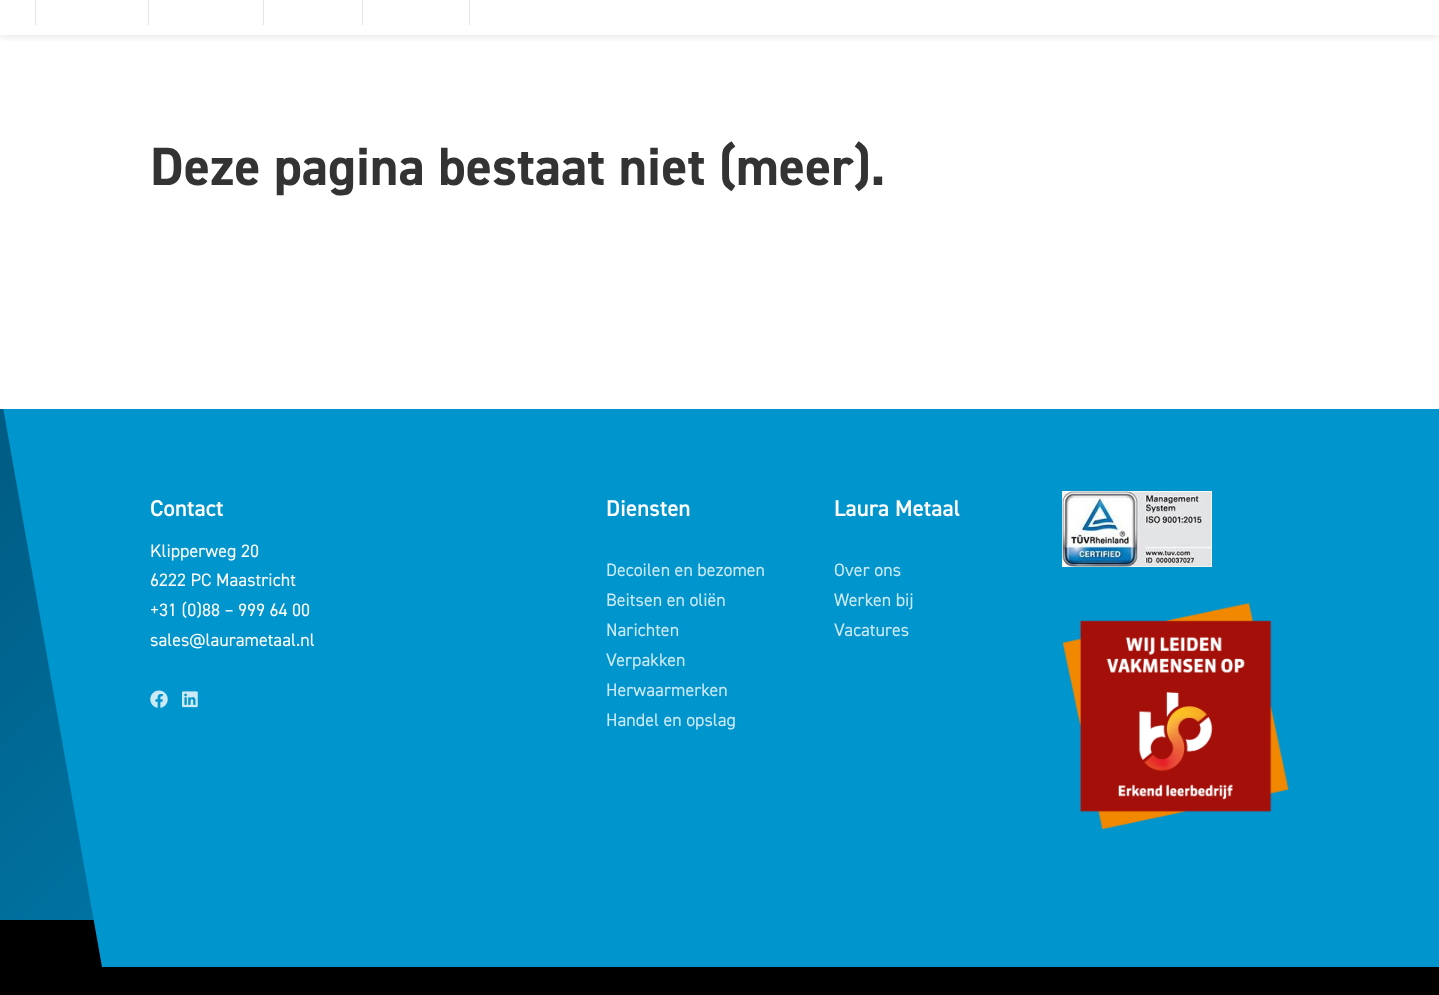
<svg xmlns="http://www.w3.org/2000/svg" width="1439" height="995">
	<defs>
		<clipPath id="clip1"><rect x="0" y="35" width="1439" height="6" /></clipPath>
		<linearGradient id="g1" gradientUnits="userSpaceOnUse" x1="232" y1="177" x2="1207" y2="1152"><stop offset="0" stop-color="#005B82" /><stop offset="1" stop-color="#00A6E6" /></linearGradient>
		<clipPath id="clip2"><rect x="0" y="409" width="1439" height="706" /></clipPath>
	</defs>
	<rect width="100%" height="100%" fill="#FFFFFF" />
	<g clip-path="url(#clip1)">
		<rect x="0" y="-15" width="1439" height="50" fill="#000000" fill-opacity="0.15" filter="blur(5px)" />
	</g>
	<rect x="35" y="0" width="1" height="25" fill="#E5E5E5" />
	<rect x="148" y="0" width="1" height="25" fill="#E5E5E5" />
	<rect x="263" y="0" width="1" height="25" fill="#E5E5E5" />
	<rect x="362" y="0" width="1" height="25" fill="#E5E5E5" />
	<rect x="469" y="0" width="1" height="25" fill="#E5E5E5" />
	<text x="150" y="185" font-family="'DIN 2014'" font-size="54" font-weight="700" fill="#333333">Deze pagina bestaat niet (meer).</text>
	<rect x="0" y="409" width="94" height="511" fill="url(#g1)" />
	<rect x="0" y="920" width="1439" height="75" fill="#000000" />
	<g clip-path="url(#clip2)">
		<path d="M-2 379H1437L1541 967H102Z" fill="#0095CD" />
	</g>
	<text x="150" y="516" font-family="'DIN 2014'" font-size="23" font-weight="600" fill="#FFFFFF">Contact</text>
	<g font-family="'DIN 2014'" font-size="18" fill="#FFFFFF">
		<text x="150" y="557">Klipperweg 20</text>
		<text x="150" y="586">6222 PC Maastricht</text>
		<text x="150" y="616">+31 (0)88 – 999 64 00</text>
		<text x="150" y="646">sales@laurametaal.nl</text>
	</g>
	<image x="150" y="690" width="18" height="18" href="assets/img1.png" />
	<image x="182" y="691" width="16" height="17" href="assets/img2.png" />
	<text x="606" y="516" font-family="'DIN 2014'" font-size="23" font-weight="600" fill="#FFFFFF">Diensten</text>
	<g font-family="'DIN 2014'" font-size="18" fill="#CCEAF5">
		<text x="606" y="576">Decoilen en bezomen</text>
		<text x="606" y="606">Beitsen en oliën</text>
		<text x="606" y="636">Narichten</text>
		<text x="606" y="666">Verpakken</text>
		<text x="606" y="696">Herwaarmerken</text>
		<text x="606" y="726">Handel en opslag</text>
	</g>
	<text x="834" y="516" font-family="'DIN 2014'" font-size="23" font-weight="600" fill="#FFFFFF">Laura Metaal</text>
	<g font-family="'DIN 2014'" font-size="18" fill="#CCEAF5">
		<text x="834" y="576">Over ons</text>
		<text x="834" y="606">Werken bij</text>
		<text x="834" y="636">Vacatures</text>
	</g>
	<image x="1062" y="491" width="150" height="76" href="assets/img3.png" />
	<image x="1062" y="603" width="227" height="227" href="assets/img4.png" />
</svg>
